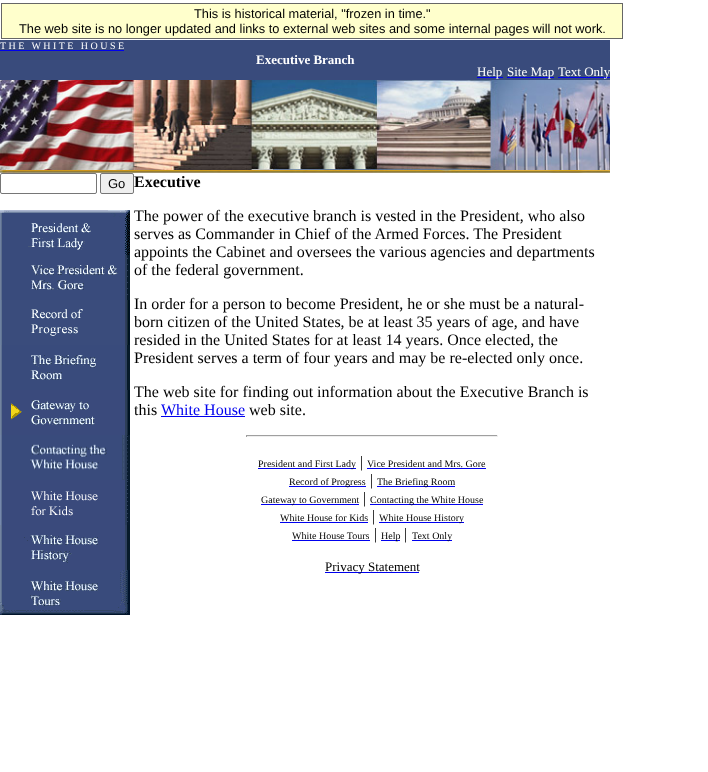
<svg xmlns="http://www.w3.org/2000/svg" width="708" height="772">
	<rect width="100%" height="100%" fill="#FFFFFF" />
	<rect x="1.5" y="3.5" width="621" height="35" fill="#FFFFCC" stroke="#666666" />
	<g font-family="Liberation Sans" font-size="12.8" fill="#000000">
		<text x="194" y="18">This is historical material, "frozen in time."</text>
		<text x="19" y="33">The web site is no longer updated and links to external web sites and some internal pages will not work.</text>
	</g>
	<rect x="0" y="40" width="610" height="40" fill="#394B7C" />
	<text x="0" y="49" font-family="Liberation Serif" font-size="10" fill="#FFFFFF" xml:space="preserve">T H E   W H I T E   H O U S E</text>
	<rect x="0" y="50" width="124" height="1" fill="#0000EE" />
	<text x="256" y="64" font-family="Liberation Serif" font-size="13" font-weight="700" fill="#FFFFFF">Executive Branch</text>
	<rect x="477" y="77" width="26" height="1" fill="#0000EE" />
	<text x="477" y="76" font-family="Liberation Serif" font-size="13" fill="#FFFFFF">Help</text>
	<rect x="507" y="77" width="47" height="1" fill="#0000EE" />
	<text x="507" y="76" font-family="Liberation Serif" font-size="13" fill="#FFFFFF">Site Map</text>
	<rect x="558" y="77" width="52" height="1" fill="#0000EE" />
	<text x="558" y="76" font-family="Liberation Serif" font-size="13" fill="#FFFFFF">Text Only</text>
	<image x="0" y="80" width="610" height="90" href="assets/img1.png" />
	<image x="0" y="170" width="610" height="3" href="assets/img2.png" />
	<rect x="0.5" y="173.5" width="96" height="20" rx="1.5" fill="none" stroke="#767676" />
	<rect x="100.5" y="173.5" width="33" height="20" rx="1.5" fill="#EFEFEF" stroke="#767676" />
	<text x="108" y="188" font-family="Liberation Sans" font-size="13" fill="#000000">Go</text>
	<image x="0" y="210" width="130" height="45" href="assets/img3.png" />
	<image x="0" y="255" width="130" height="45" href="assets/img4.png" />
	<image x="0" y="300" width="130" height="45" href="assets/img5.png" />
	<image x="0" y="345" width="130" height="45" href="assets/img6.png" />
	<image x="0" y="390" width="130" height="45" href="assets/img7.png" />
	<image x="0" y="435" width="130" height="45" href="assets/img8.png" />
	<image x="0" y="480" width="130" height="45" href="assets/img9.png" />
	<image x="0" y="525" width="130" height="45" href="assets/img10.png" />
	<image x="0" y="570" width="130" height="45" href="assets/img11.png" />
	<text x="134" y="187" font-family="Liberation Serif" font-size="16" font-weight="700" fill="#000000">Executive</text>
	<g font-family="Liberation Serif" font-size="16" fill="#000000">
		<text x="134" y="221">The power of the executive branch is vested in the President, who also</text>
		<text x="134" y="239">serves as Commander in Chief of the Armed Forces. The President</text>
		<text x="134" y="257">appoints the Cabinet and oversees the various agencies and departments</text>
		<text x="134" y="275">of the federal government.</text>
		<text x="134" y="309">In order for a person to become President, he or she must be a natural-</text>
		<text x="134" y="327">born citizen of the United States, be at least 35 years of age, and have</text>
		<text x="134" y="345">resided in the United States for at least 14 years. Once elected, the</text>
		<text x="134" y="363">President serves a term of four years and may be re-elected only once.</text>
		<text x="134" y="397">The web site for finding out information about the Executive Branch is</text>
		<text x="134" y="415">this</text>
	</g>
	<text x="161" y="415" font-family="Liberation Serif" font-size="16" fill="#0000EE">White House</text>
	<rect x="161" y="416" width="84" height="1" fill="#0000EE" />
	<text x="249" y="415" font-family="Liberation Serif" font-size="16" fill="#000000">web site.</text>
	<rect x="246" y="435" width="252" height="1" fill="#9F9F9F" />
	<rect x="497" y="435" width="1" height="2" fill="#EEEEEE" />
	<rect x="246" y="436" width="252" height="1" fill="#EEEEEE" />
	<rect x="246" y="435" width="1" height="2" fill="#9F9F9F" />
	<rect x="258" y="468" width="98" height="1" fill="#0000EE" />
	<text x="258" y="467" font-family="Liberation Serif" font-size="10" fill="#000000">President and First Lady</text>
	<text x="360" y="467" font-family="Liberation Serif" font-size="16" fill="#000000">|</text>
	<text x="367" y="467" font-family="Liberation Serif" font-size="10" fill="#000000">Vice President and Mrs. Gore</text>
	<rect x="367" y="468" width="119" height="1" fill="#0000EE" />
	<rect x="289" y="486" width="77" height="1" fill="#0000EE" />
	<text x="289" y="485" font-family="Liberation Serif" font-size="10" fill="#000000">Record of Progress</text>
	<text x="370" y="485" font-family="Liberation Serif" font-size="16" fill="#000000">|</text>
	<rect x="377" y="486" width="78" height="1" fill="#0000EE" />
	<text x="377" y="485" font-family="Liberation Serif" font-size="10" fill="#000000">The Briefing Room</text>
	<rect x="261" y="504" width="98" height="1" fill="#0000EE" />
	<text x="261" y="503" font-family="Liberation Serif" font-size="10" fill="#000000">Gateway to Government</text>
	<text x="363" y="503" font-family="Liberation Serif" font-size="16" fill="#000000">|</text>
	<rect x="370" y="504" width="113" height="1" fill="#0000EE" />
	<g font-family="Liberation Serif" font-size="10" fill="#000000">
		<text x="370" y="503">Contacting the White House</text>
		<text x="280" y="521">White House for Kids</text>
	</g>
	<rect x="280" y="522" width="88" height="1" fill="#0000EE" />
	<text x="372" y="521" font-family="Liberation Serif" font-size="16" fill="#000000">|</text>
	<rect x="379" y="522" width="85" height="1" fill="#0000EE" />
	<g font-family="Liberation Serif" font-size="10" fill="#000000">
		<text x="379" y="521">White House History</text>
		<text x="292" y="539">White House Tours</text>
	</g>
	<rect x="292" y="540" width="78" height="1" fill="#0000EE" />
	<text x="374" y="539" font-family="Liberation Serif" font-size="16" fill="#000000">|</text>
	<rect x="381" y="540" width="19" height="1" fill="#0000EE" />
	<text x="381" y="539" font-family="Liberation Serif" font-size="10" fill="#000000">Help</text>
	<text x="404" y="539" font-family="Liberation Serif" font-size="16" fill="#000000">|</text>
	<rect x="412" y="540" width="40" height="1" fill="#0000EE" />
	<text x="412" y="539" font-family="Liberation Serif" font-size="10" fill="#000000">Text Only</text>
	<rect x="325" y="572" width="94" height="1" fill="#0000EE" />
	<text x="325" y="571" font-family="Liberation Serif" font-size="13" fill="#000000">Privacy Statement</text>
</svg>
